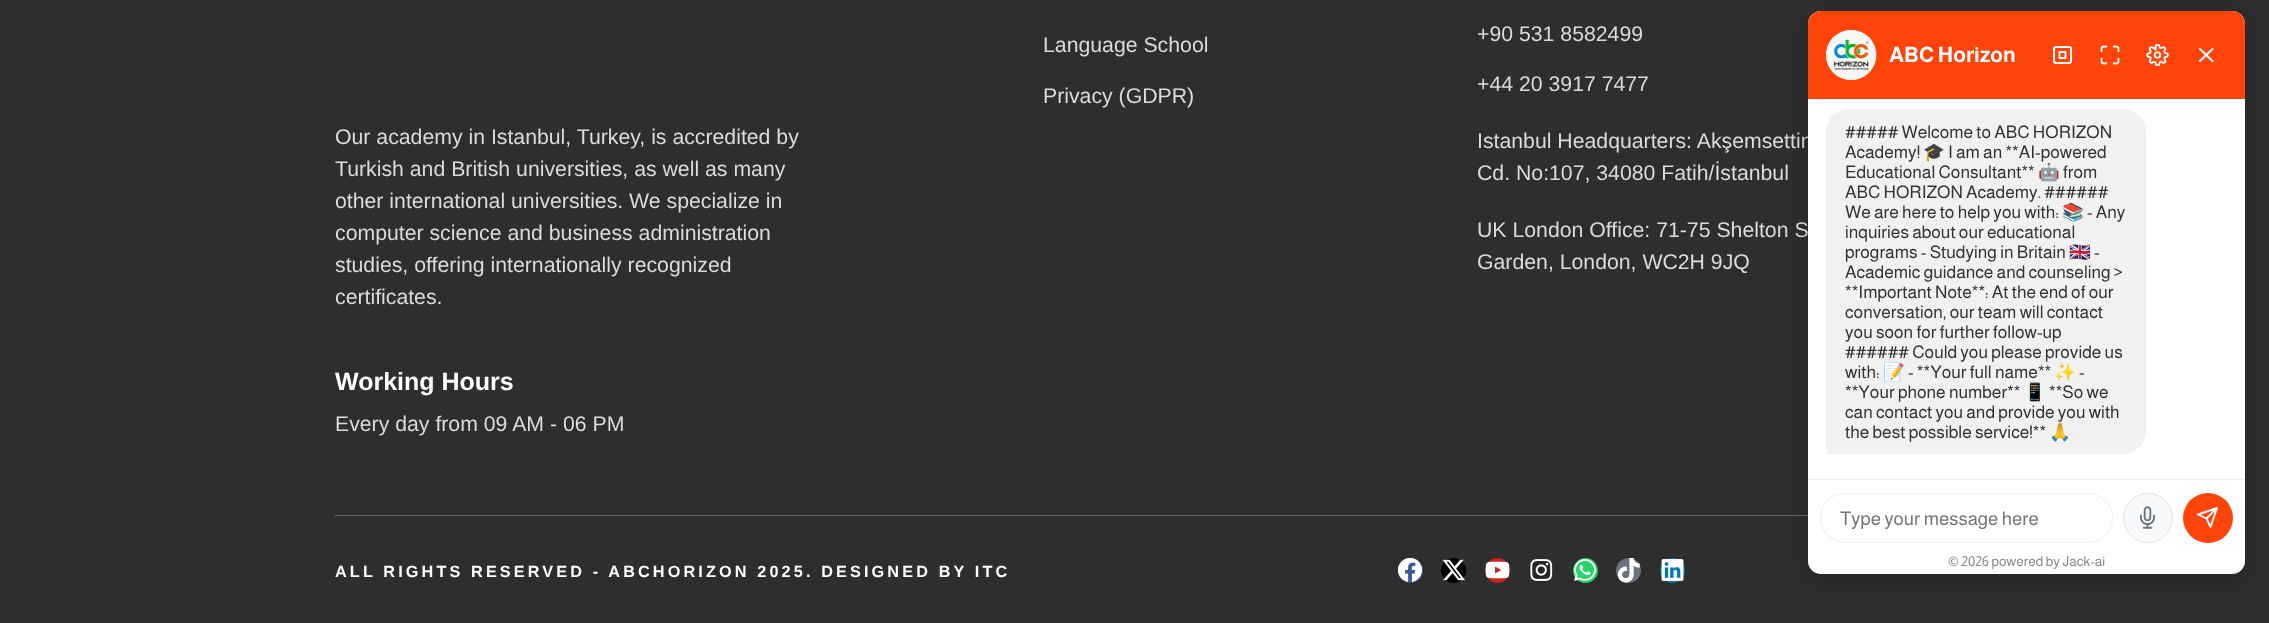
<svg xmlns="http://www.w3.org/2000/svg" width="2269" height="623">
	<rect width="100%" height="100%" fill="#2E2E2E" />
	<g font-family="Liberation Sans" font-size="21.25" fill="#DBDBDB">
		<text x="1043" y="52">Language School</text>
		<text x="1043" y="103">Privacy (GDPR)</text>
		<text x="1477" y="41">+90 531 8582499</text>
		<text x="1477" y="91">+44 20 3917 7477</text>
		<text x="1477" y="148">Istanbul Headquarters: Akşemsettin</text>
		<text x="1477" y="180">Cd. No:107, 34080 Fatih/İstanbul</text>
		<text x="1477" y="237">UK London Office: 71-75 Shelton S</text>
		<text x="1477" y="269">Garden, London, WC2H 9JQ</text>
		<text x="335" y="144">Our academy in Istanbul, Turkey, is accredited by</text>
		<text x="335" y="176">Turkish and British universities, as well as many</text>
		<text x="335" y="208">other international universities. We specialize in</text>
		<text x="335" y="240">computer science and business administration</text>
		<text x="335" y="272">studies, offering internationally recognized</text>
		<text x="335" y="304">certificates.</text>
	</g>
	<text x="335" y="390" font-family="Liberation Sans" font-size="25" font-weight="700" fill="#FFFFFF">Working Hours</text>
	<text x="335" y="431" font-family="Liberation Sans" font-size="21.25" fill="#DBDBDB">Every day from 09 AM - 06 PM</text>
	<rect x="335" y="515" width="1473" height="1" fill="#666666" />
	<text x="335" y="577" font-family="Liberation Sans" font-size="16.25" font-weight="700" letter-spacing="3.12" fill="#FFFFFF">ALL RIGHTS RESERVED - ABCHORIZON 2025. DESIGNED BY ITC</text>
	<circle cx="1410.5" cy="570.5" r="12.5" fill="#3B5998" />
	<image x="1398" y="558" width="25" height="24" href="assets/img1.png" />
	<circle cx="1453.5" cy="570.5" r="12.5" fill="#000000" />
	<image x="1442" y="559" width="23" height="22" href="assets/img2.png" />
	<circle cx="1497.5" cy="570.5" r="12.5" fill="#CD201F" />
	<image x="1485" y="561" width="25" height="18" href="assets/img3.png" />
	<circle cx="1541.5" cy="570.5" r="12.5" fill="#262626" />
	<image x="1530" y="559" width="23" height="22" href="assets/img4.png" />
	<circle cx="1585.5" cy="570.5" r="12.5" fill="#25D366" />
	<image x="1574" y="559" width="22" height="22" href="assets/img5.png" />
	<circle cx="1628.5" cy="570.5" r="12.5" fill="#69727D" />
	<image x="1617" y="558" width="23" height="25" href="assets/img6.png" />
	<circle cx="1672.5" cy="570.5" r="12.5" fill="#0077B5" />
	<image x="1661" y="559" width="23" height="22" href="assets/img7.png" />
	<rect x="1808" y="16" width="437" height="563" rx="13" fill="#000000" fill-opacity="0.2" filter="blur(12.5px)" />
	<rect x="1808" y="11" width="437" height="563" rx="13" fill="#FFFFFF" />
	<path d="M1821 11H2232C2239 11 2245 17 2245 24V99H1808V24C1808 17 1814 11 1821 11Z" fill="#FF440B" />
	<circle cx="1851" cy="55" r="25" fill="#FFFFFF" />
	<image x="1826" y="30" width="51" height="50" href="assets/img8.png" />
	<text x="1889" y="62" font-family="Almarai" font-size="21.25" font-weight="700" fill="#FFFFFF">ABC Horizon</text>
	<rect x="2054" y="47" width="17" height="16" rx="2" fill="none" stroke="#FFFFFF" stroke-width="2" />
	<path d="M2059.5 52H2065.5V58H2059.5Z" fill="none" stroke="#FFFFFF" stroke-width="1.9" stroke-linecap="round" stroke-linejoin="round" />
	<image x="2100" y="45" width="20" height="20" href="assets/img9.png" />
	<image x="2146" y="44" width="23" height="22" href="assets/img10.png" />
	<path d="M2212.5 49L2200 61M2200 49L2212.5 61" fill="none" stroke="#FFFFFF" stroke-width="2.1" stroke-linecap="round" stroke-linejoin="round" />
	<path d="M1849 109H2123C2135.5 109 2146 119.5 2146 132V431C2146 443.5 2135.5 454 2123 454H1826V132C1826 119.5 1836.5 109 1849 109Z" fill="#F1F1F1" />
	<g font-family="Almarai" font-size="17.5" fill="#333333">
		<text x="1845" y="138">##### Welcome to ABC HORIZON</text>
		<text x="1845" y="158">Academy!</text>
	</g>
	<text x="1923" y="158" font-family="Noto Color Emoji" font-size="17.5" fill="#333333">🎓</text>
	<g font-family="Almarai" font-size="17.5" fill="#333333">
		<text x="1948" y="158">I am an **AI-powered</text>
		<text x="1845" y="178">Educational Consultant**</text>
	</g>
	<text x="2038" y="178" font-family="Noto Color Emoji" font-size="17.5" fill="#333333">🤖</text>
	<g font-family="Almarai" font-size="17.5" fill="#333333">
		<text x="2063" y="178">from</text>
		<text x="1845" y="198">ABC HORIZON Academy. ######</text>
		<text x="1845" y="218">We are here to help you with:</text>
	</g>
	<text x="2062" y="218" font-family="Noto Color Emoji" font-size="17.5" fill="#333333">📚</text>
	<g font-family="Almarai" font-size="17.5" fill="#333333">
		<text x="2087" y="218">- Any</text>
		<text x="1845" y="238">inquiries about our educational</text>
		<text x="1845" y="258">programs - Studying in Britain</text>
	</g>
	<text x="2069" y="258" font-family="Noto Color Emoji" font-size="17.5" fill="#333333">🇬🇧</text>
	<g font-family="Almarai" font-size="17.5" fill="#333333">
		<text x="2094" y="258">-</text>
		<text x="1845" y="278">Academic guidance and counseling &gt;</text>
		<text x="1845" y="298">**Important Note**: At the end of our</text>
		<text x="1845" y="318">conversation, our team will contact</text>
		<text x="1845" y="338">you soon for further follow-up</text>
		<text x="1845" y="358">###### Could you please provide us</text>
		<text x="1845" y="378">with:</text>
	</g>
	<text x="1883" y="378" font-family="Noto Color Emoji" font-size="17.5" fill="#333333">📝</text>
	<text x="1908" y="378" font-family="Almarai" font-size="17.5" fill="#333333">- **Your full name**</text>
	<text x="2054" y="378" font-family="Noto Color Emoji" font-size="17.5" fill="#333333">✨</text>
	<g font-family="Almarai" font-size="17.5" fill="#333333">
		<text x="2079" y="378">-</text>
		<text x="1845" y="398">**Your phone number**</text>
	</g>
	<text x="2024" y="398" font-family="Noto Color Emoji" font-size="17.5" fill="#333333">📱</text>
	<g font-family="Almarai" font-size="17.5" fill="#333333">
		<text x="2049" y="398">**So we</text>
		<text x="1845" y="418">can contact you and provide you with</text>
		<text x="1845" y="438">the best possible service!**</text>
	</g>
	<text x="2049" y="438" font-family="Noto Color Emoji" font-size="17.5" fill="#333333">🙏</text>
	<rect x="1808" y="479" width="437" height="1" fill="#EEEEEE" />
	<rect x="1820.5" y="493.5" width="292" height="49" rx="24.5" fill="none" stroke="#EEEEEE" />
	<text x="1840" y="525" font-family="Almarai" font-size="18.75" fill="#757575">Type your message here</text>
	<circle cx="2148" cy="518" r="24.5" fill="#F8F9FA" stroke="#DEE2E6" />
	<image x="2140" y="506" width="15" height="23" href="assets/img11.png" />
	<circle cx="2208" cy="518" r="25" fill="#FF440B" />
	<path d="M2217 508L2206.5 518.5M2217 508L2210.5 527L2206.5 518.5L2198 514.5Z" fill="none" stroke="#FFFFFF" stroke-width="1.9" stroke-linecap="round" stroke-linejoin="round" />
	<text x="1948" y="566" font-family="Almarai" font-size="13.75" fill="#888888">© 2026 powered by Jack-ai</text>
</svg>
